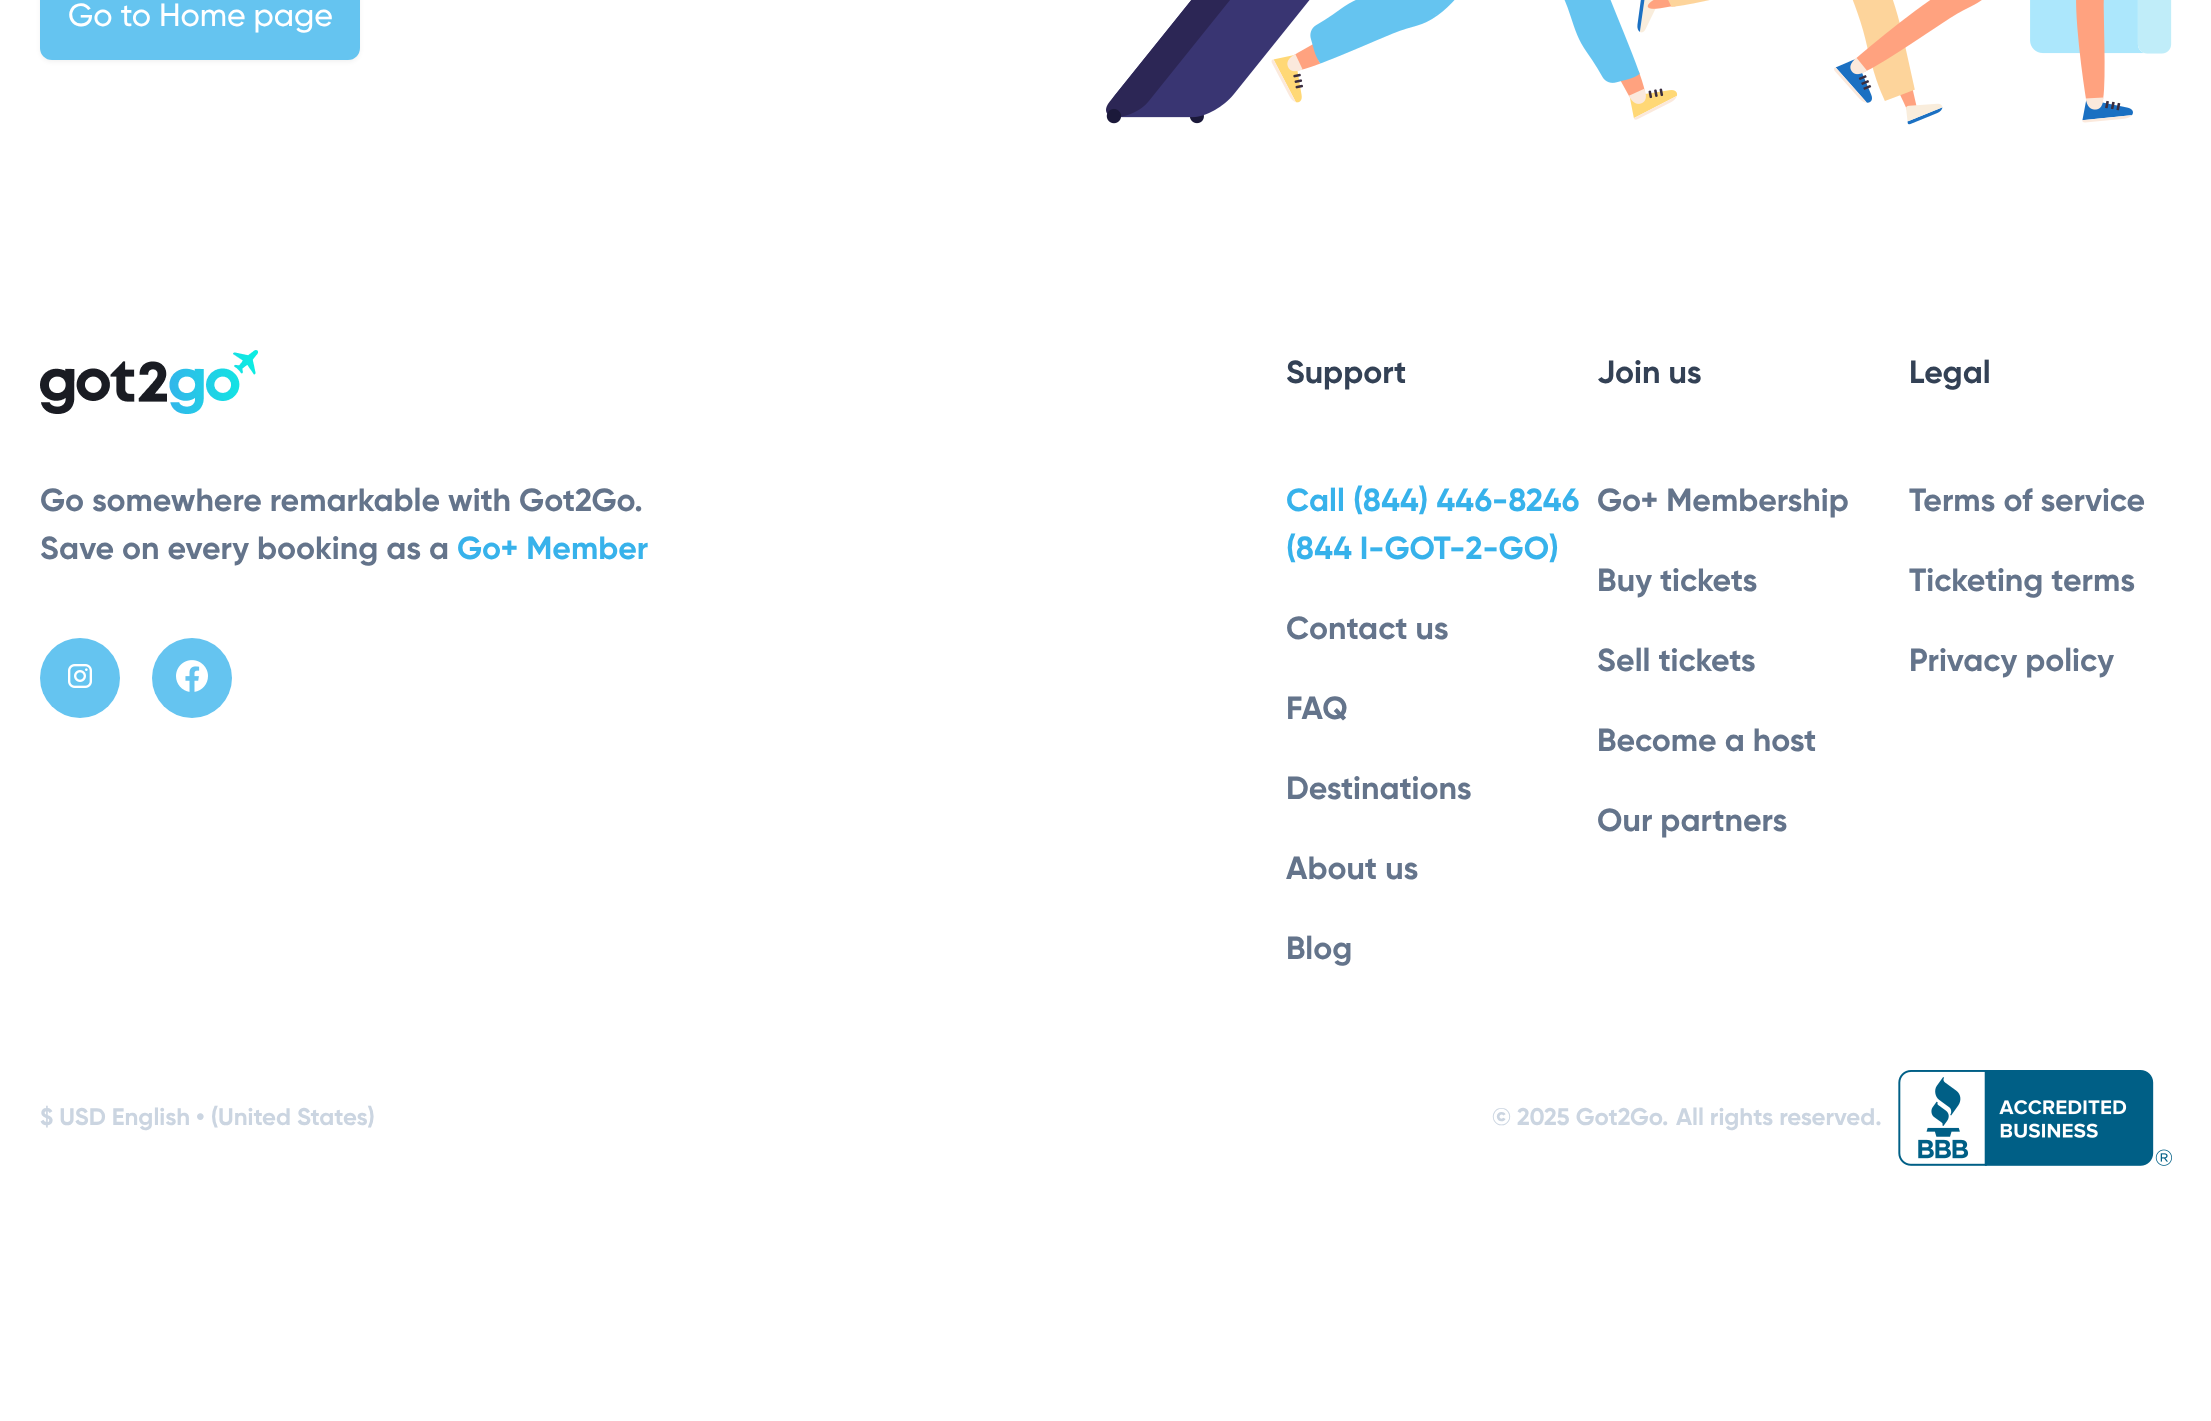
<svg xmlns="http://www.w3.org/2000/svg" width="2211" height="1421">
	<rect width="100%" height="100%" fill="#FFFFFF" />
	<rect x="40" y="-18" width="320" height="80" rx="12" fill="#000000" fill-opacity="0.05" filter="blur(2px)" />
	<rect x="40" y="-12" width="320" height="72" rx="12" fill="#65C4F0" />
	<text x="68" y="26" font-family="Gilroy" font-size="32" font-weight="500" fill="#FFFFFF">Go to Home page</text>
	<image x="1106" y="0" width="1066" height="125" href="assets/img1.png" />
	<image x="40" y="350" width="218" height="64" href="assets/img2.png" />
	<g font-family="Gilroy" font-size="32" font-weight="700" fill="#64748B">
		<text x="40" y="511">Go somewhere remarkable with Got2Go.</text>
		<text x="40" y="559">Save on every booking as a</text>
	</g>
	<text x="457" y="559" font-family="Gilroy" font-size="32" font-weight="700" fill="#37B2EB">Go+ Member</text>
	<circle cx="80" cy="678" r="40" fill="#65C4F0" />
	<image x="68" y="664" width="24" height="24" href="assets/img3.png" />
	<circle cx="192" cy="678" r="40" fill="#65C4F0" />
	<image x="176" y="660" width="32" height="32" href="assets/img4.png" />
	<text x="1286" y="383" font-family="Gilroy" font-size="32" font-weight="700" fill="#334155">Support</text>
	<g font-family="Gilroy" font-size="32" font-weight="700" fill="#37B2EB">
		<text x="1286" y="511">Call (844) 446-8246</text>
		<text x="1286" y="559">(844 I-GOT-2-GO)</text>
	</g>
	<g font-family="Gilroy" font-size="32" font-weight="700" fill="#64748B">
		<text x="1286" y="639">Contact us</text>
		<text x="1286" y="719">FAQ</text>
		<text x="1286" y="799">Destinations</text>
		<text x="1286" y="879">About us</text>
		<text x="1286" y="959">Blog</text>
	</g>
	<text x="1597" y="383" font-family="Gilroy" font-size="32" font-weight="700" fill="#334155">Join us</text>
	<g font-family="Gilroy" font-size="32" font-weight="700" fill="#64748B">
		<text x="1597" y="511">Go+ Membership</text>
		<text x="1597" y="591">Buy tickets</text>
		<text x="1597" y="671">Sell tickets</text>
		<text x="1597" y="751">Become a host</text>
		<text x="1597" y="831">Our partners</text>
	</g>
	<text x="1909" y="383" font-family="Gilroy" font-size="32" font-weight="700" fill="#334155">Legal</text>
	<g font-family="Gilroy" font-size="32" font-weight="700" fill="#64748B">
		<text x="1909" y="511">Terms of service</text>
		<text x="1909" y="591">Ticketing terms</text>
		<text x="1909" y="671">Privacy policy</text>
	</g>
	<g font-family="Gilroy" font-size="24" font-weight="700" fill="#CBD5E1">
		<text x="40" y="1125">$ USD English • (United States)</text>
		<text x="1492" y="1125">© 2025 Got2Go.</text>
		<text x="1676" y="1125">All rights reserved.</text>
	</g>
	<image x="1898" y="1070" width="274" height="96" href="assets/img5.png" />
</svg>
